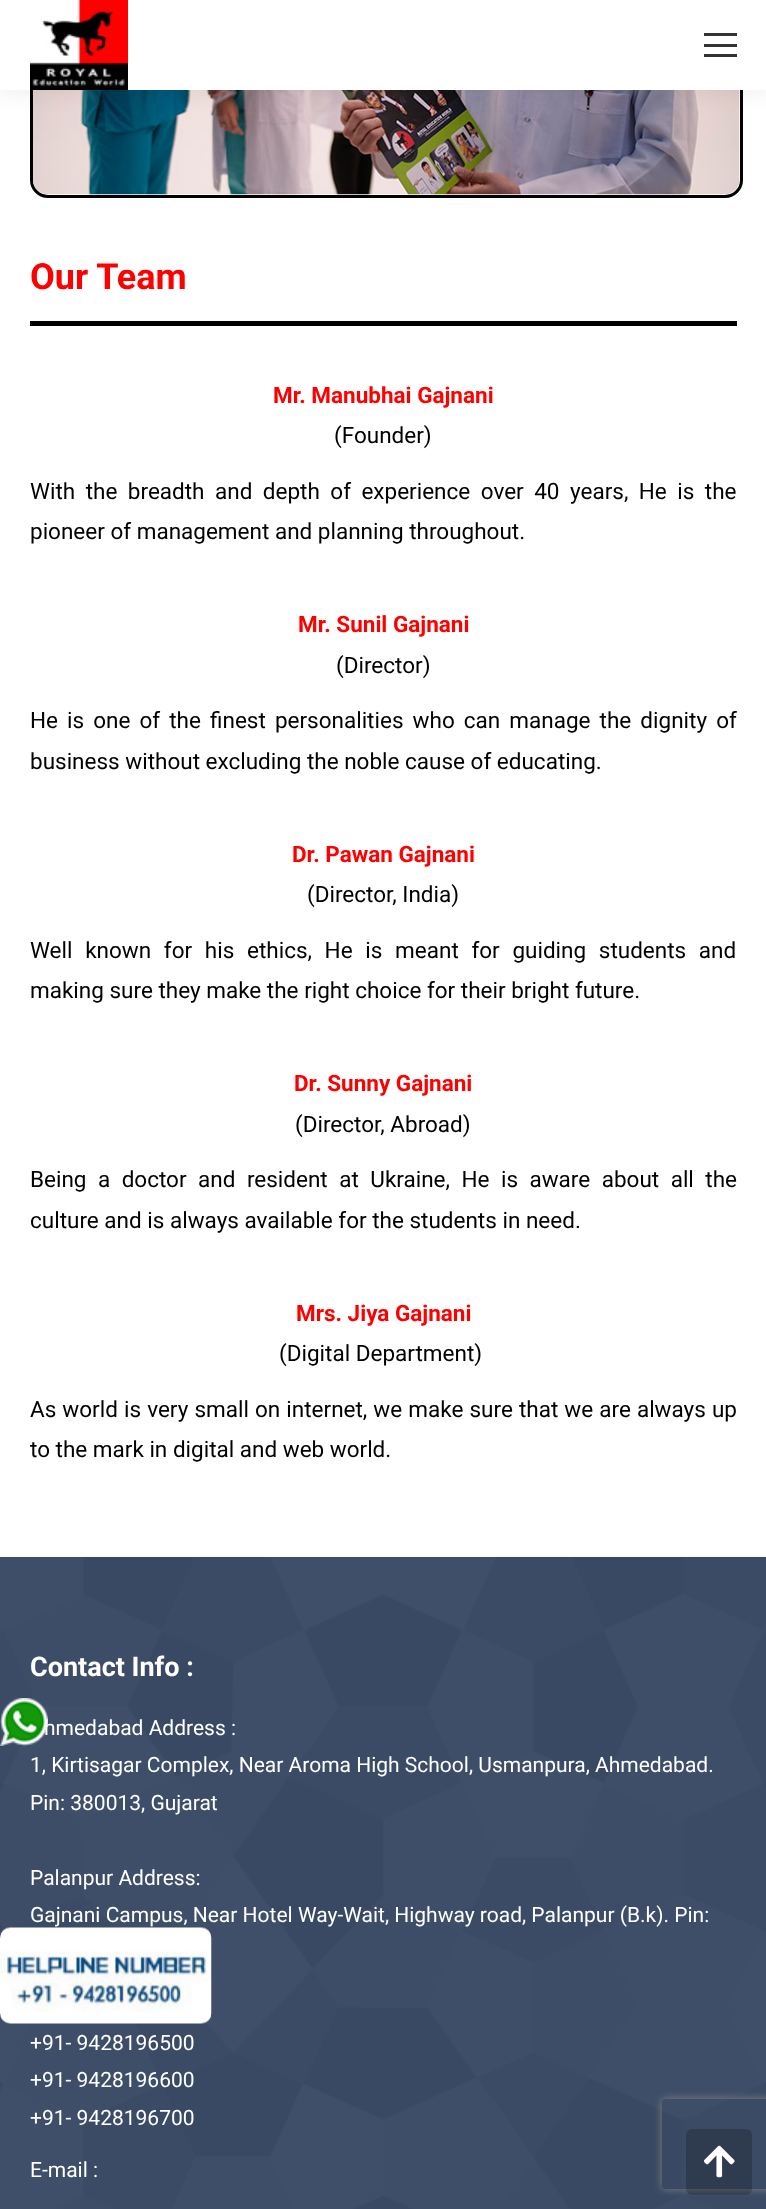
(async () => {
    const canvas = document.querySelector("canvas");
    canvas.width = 766;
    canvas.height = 2209;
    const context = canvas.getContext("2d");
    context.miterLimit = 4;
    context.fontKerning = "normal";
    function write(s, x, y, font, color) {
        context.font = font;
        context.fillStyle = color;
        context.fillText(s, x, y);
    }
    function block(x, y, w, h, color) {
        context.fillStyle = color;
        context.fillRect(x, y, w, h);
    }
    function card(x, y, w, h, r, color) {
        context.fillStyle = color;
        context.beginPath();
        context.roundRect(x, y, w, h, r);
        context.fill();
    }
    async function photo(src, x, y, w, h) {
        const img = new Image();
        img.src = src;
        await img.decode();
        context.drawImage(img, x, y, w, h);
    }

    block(0, 0, 766, 2209, "rgb(255, 255, 255)");
    block(0, 1557, 766, 652, "rgb(26, 45, 78)");
    await photo("media/4.png", 0, 1556, 766, 653);
    write("hmedabad Address :", 44, 1735, "21px Roboto", "rgb(255, 255, 255)");
    await photo("media/1.png", 0, 1698, 48, 48);
    context.beginPath();
    context.roundRect(31.5, -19.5, 710, 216, 16.5);
    context.strokeStyle = "rgb(0, 0, 0)";
    context.lineWidth = 3;
    context.stroke();
    await photo("media/3.png", 33, 90, 707, 105);
    context.fillStyle = "rgba(0, 0, 0, 0.07)";
    context.filter = "blur(11px)";
    context.beginPath();
    context.rect(-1, -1, 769, 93);
    context.fill();
    context.filter = "none";
    block(0, 0, 766, 90, "rgb(255, 255, 255)");
    await photo("media/2.png", 30, 0, 98, 90);
    block(704, 44, 33, 3, "rgb(51, 51, 51)");
    block(704, 33, 33, 3, "rgb(51, 51, 51)");
    block(704, 54, 33, 3, "rgb(51, 51, 51)");
    write("Our Team", 30, 289, "bold 36px Roboto", "rgb(254, 0, 0)");
    block(30, 321, 707, 5, "rgb(0, 0, 0)");
    write("Mr. Manubhai Gajnani", 273, 403, "bold 22.5px Roboto", "rgb(254, 0, 0)");
    write("(Founder)", 334, 443, "22.5px Roboto", "rgb(0, 0, 0)");
    context.wordSpacing = "4.9px";
    write("With the breadth and depth of experience over 40 years, He is the", 30, 499, "22.5px Roboto", "rgb(0, 0, 0)");
    context.wordSpacing = "0px";
    write("pioneer of management and planning throughout.", 30, 539, "22.5px Roboto", "rgb(0, 0, 0)");
    write("Mr. Sunil Gajnani", 298, 632, "bold 22.5px Roboto", "rgb(254, 0, 0)");
    write("(Director)", 336, 673, "22.5px Roboto", "rgb(0, 0, 0)");
    context.wordSpacing = "3.5px";
    write("He is one of the finest personalities who can manage the dignity of", 30, 728, "22.5px Roboto", "rgb(0, 0, 0)");
    context.wordSpacing = "0px";
    write("business without excluding the noble cause of educating.", 30, 769, "22.5px Roboto", "rgb(0, 0, 0)");
    write("Dr. Pawan Gajnani", 292, 862, "bold 22.5px Roboto", "rgb(254, 0, 0)");
    write("(Director, India)", 307, 902, "22.5px Roboto", "rgb(0, 0, 0)");
    context.wordSpacing = "7.1px";
    write("Well known for his ethics, He is meant for guiding students and", 30, 958, "22.5px Roboto", "rgb(0, 0, 0)");
    context.wordSpacing = "0px";
    write("making sure they make the right choice for their bright future.", 30, 998, "22.5px Roboto", "rgb(0, 0, 0)");
    write("Dr. Sunny Gajnani", 294, 1091, "bold 22.5px Roboto", "rgb(254, 0, 0)");
    write("(Director, Abroad)", 295, 1132, "22.5px Roboto", "rgb(0, 0, 0)");
    context.wordSpacing = "5.9px";
    write("Being a doctor and resident at Ukraine, He is aware about all the", 30, 1187, "22.5px Roboto", "rgb(0, 0, 0)");
    context.wordSpacing = "0px";
    write("culture and is always available for the students in need.", 30, 1228, "22.5px Roboto", "rgb(0, 0, 0)");
    write("Mrs. Jiya Gajnani", 296, 1321, "bold 22.5px Roboto", "rgb(254, 0, 0)");
    write("(Digital Department)", 279, 1361, "22.5px Roboto", "rgb(0, 0, 0)");
    context.wordSpacing = "0.5px";
    write("As world is very small on internet, we make sure that we are always up", 30, 1417, "22.5px Roboto", "rgb(0, 0, 0)");
    context.wordSpacing = "0px";
    write("to the mark in digital and web world.", 30, 1457, "22.5px Roboto", "rgb(0, 0, 0)");
    write("Contact Info :", 30, 1676, "bold 27px Roboto", "rgb(255, 255, 255)");
    write("1, Kirtisagar Complex, Near Aroma High School, Usmanpura, Ahmedabad.", 30, 1772, "21px Roboto", "rgb(255, 255, 255)");
    write("Pin: 380013, Gujarat", 30, 1810, "21px Roboto", "rgb(255, 255, 255)");
    write("Palanpur Address:", 30, 1885, "21px Roboto", "rgb(255, 255, 255)");
    write("Gajnani Campus, Near Hotel Way-Wait, Highway road, Palanpur (B.k). Pin:", 30, 1922, "21px Roboto", "rgb(255, 255, 255)");
    write("+91- 9428196500", 30, 2050, "21px Roboto", "rgb(255, 255, 255)");
    write("+91- 9428196600", 30, 2087, "21px Roboto", "rgb(255, 255, 255)");
    write("+91- 9428196700", 30, 2125, "21px Roboto", "rgb(255, 255, 255)");
    write("E-mail :", 30, 2177, "21px Roboto", "rgb(255, 255, 255)");
    context.save();
    context.beginPath();
    context.moveTo(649, 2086);
    context.lineTo(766, 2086);
    context.lineTo(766, 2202);
    context.lineTo(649, 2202);
    context.closePath();
    context.moveTo(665, 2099);
    context.lineTo(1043, 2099);
    context.bezierCurveTo(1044.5, 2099, 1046, 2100.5, 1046, 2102);
    context.lineTo(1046, 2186);
    context.bezierCurveTo(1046, 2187.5, 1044.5, 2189, 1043, 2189);
    context.lineTo(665, 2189);
    context.bezierCurveTo(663.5, 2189, 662, 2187.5, 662, 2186);
    context.lineTo(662, 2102);
    context.bezierCurveTo(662, 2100.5, 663.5, 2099, 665, 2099);
    context.closePath();
    context.clip("evenodd");
    context.fillStyle = "rgb(128, 128, 128)";
    context.filter = "blur(4px)";
    context.beginPath();
    context.roundRect(662, 2099, 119, 90, 3);
    context.fill();
    context.filter = "none";
    context.restore();
    card(686, 2129, 66, 66, 6, "rgba(0, 0, 0, 0.2)");
    await photo("media/5.png", 703, 2145, 32, 33);
    await photo("media/6.png", 0, 1927, 212, 97);
})();
